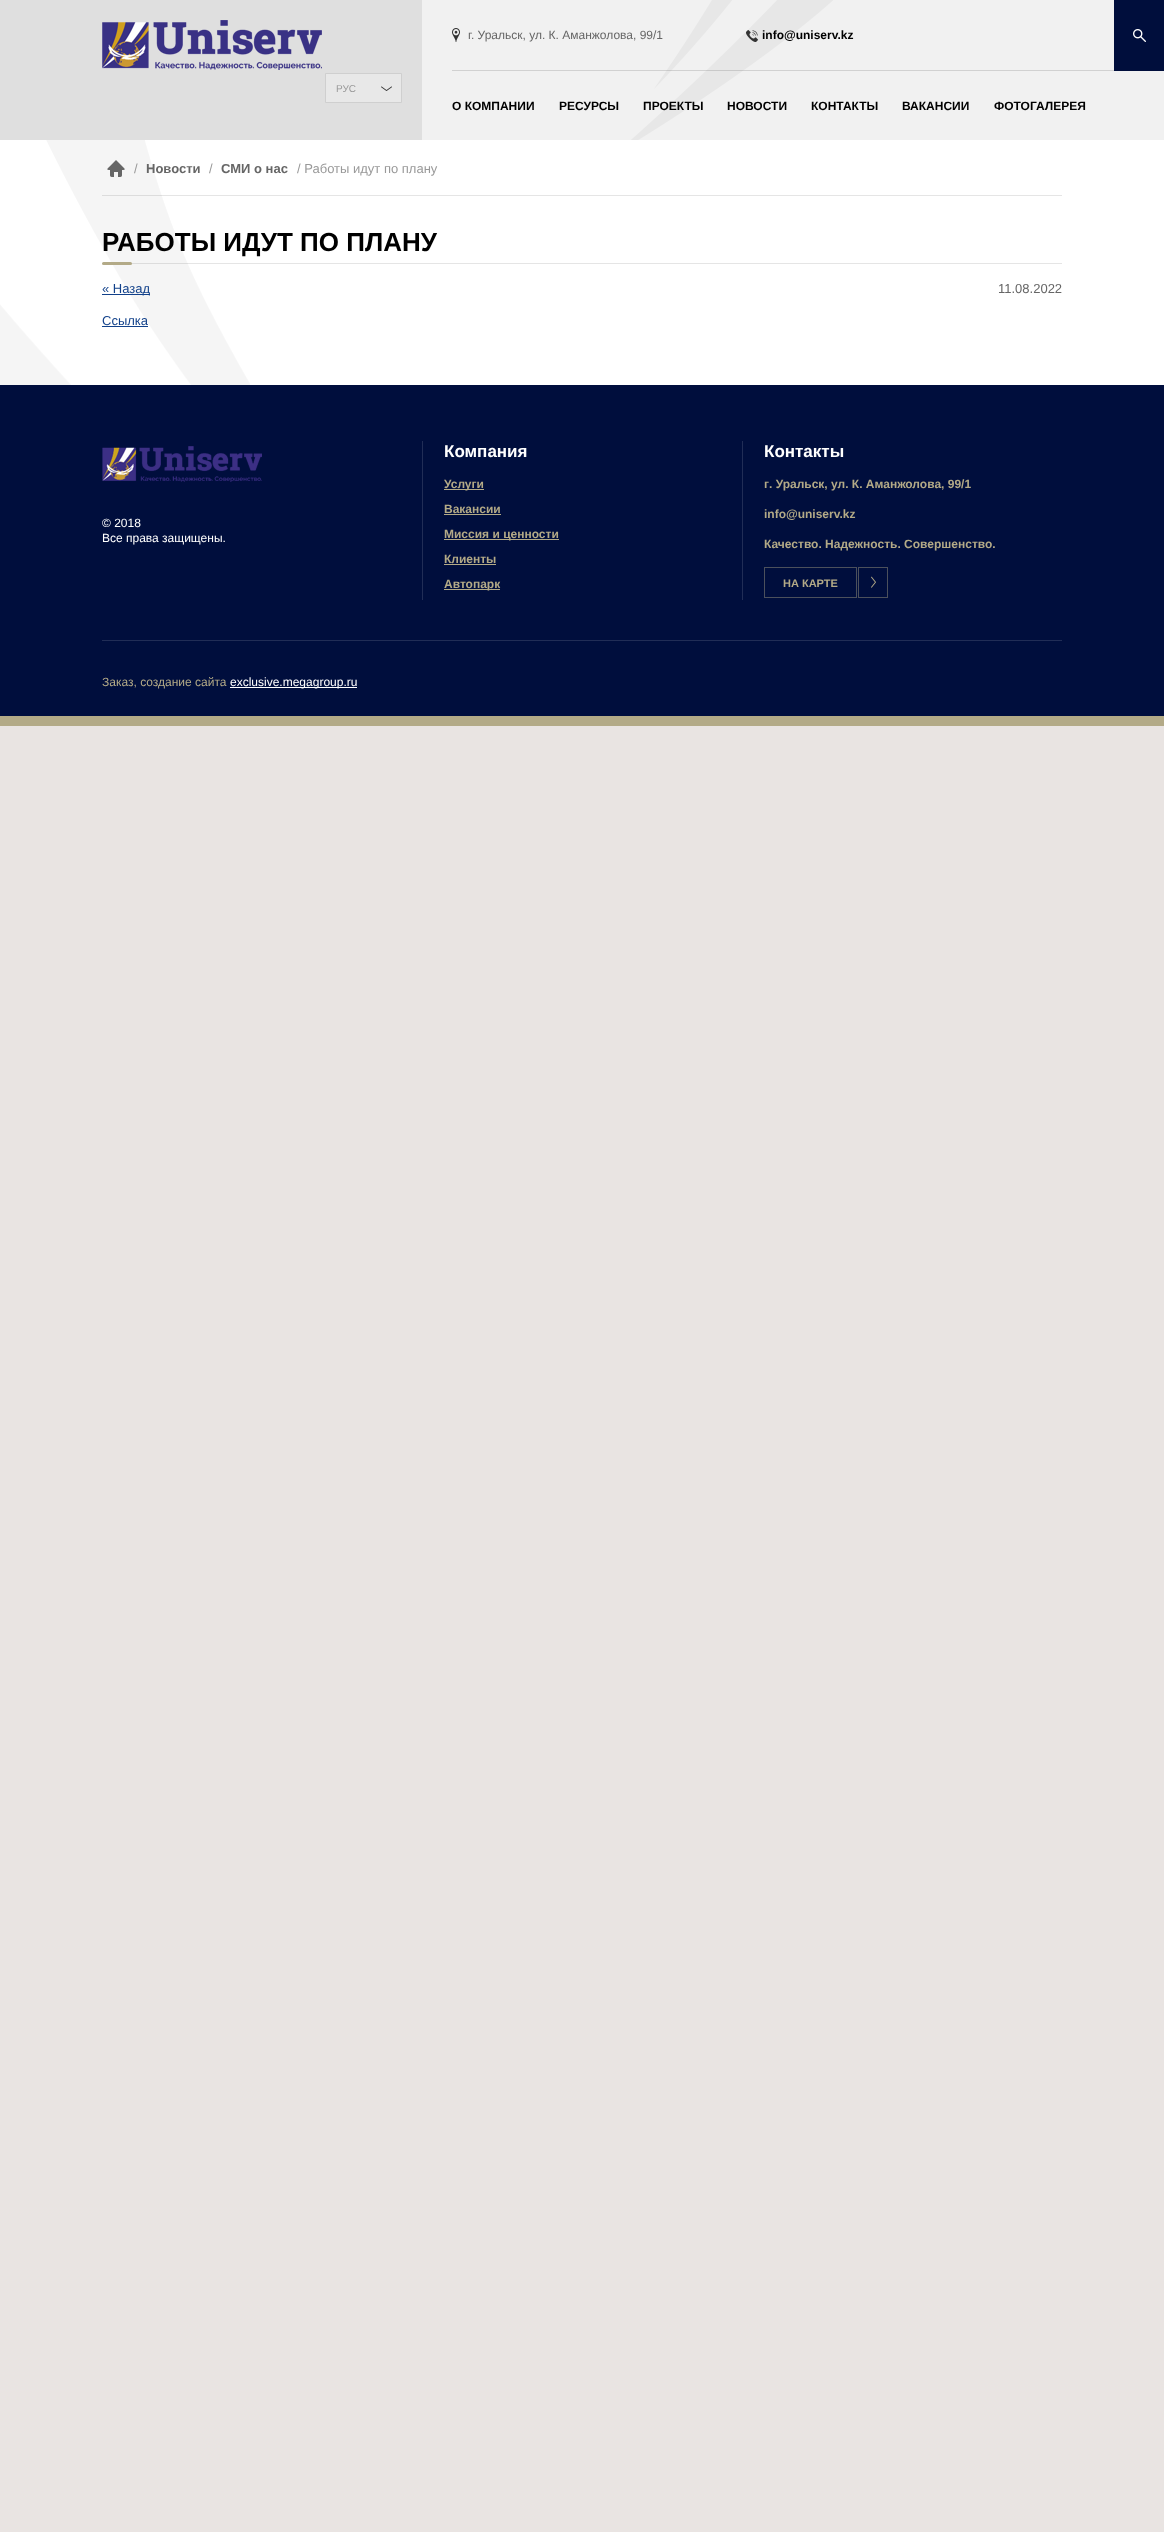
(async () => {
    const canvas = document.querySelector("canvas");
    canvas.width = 1164;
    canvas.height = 2532;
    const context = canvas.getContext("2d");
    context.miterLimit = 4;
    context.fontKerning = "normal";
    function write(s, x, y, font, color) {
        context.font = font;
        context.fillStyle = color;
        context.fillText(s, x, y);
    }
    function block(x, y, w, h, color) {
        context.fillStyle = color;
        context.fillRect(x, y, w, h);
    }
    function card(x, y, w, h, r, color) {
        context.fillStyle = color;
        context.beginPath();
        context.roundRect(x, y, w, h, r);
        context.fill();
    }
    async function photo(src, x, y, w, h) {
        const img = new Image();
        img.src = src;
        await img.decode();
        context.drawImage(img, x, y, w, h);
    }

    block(0, 0, 1164, 2532, "rgb(233, 228, 226)");
    block(0, 0, 422, 140, "rgb(223, 223, 223)");
    block(422, 0, 742, 140, "rgb(241, 241, 241)");
    await photo("media/1.png", 631, 0, 202, 140);
    await photo("media/2.png", 102, 20, 220, 50);
    context.fillStyle = "rgb(232, 232, 232)";
    context.beginPath();
    context.rect(325.5, 73.5, 76, 29);
    context.fill();
    context.strokeStyle = "rgb(207, 207, 207)";
    context.stroke();
    write("РУС", 336, 92, "10px Liberation Sans", "rgb(153, 153, 153)");
    await photo("media/3.png", 381, 86, 11, 5);
    block(452, 70, 662, 1, "rgba(0, 0, 0, 0.13)");
    await photo("media/4.png", 452, 28, 8, 14);
    write("г. Уральск, ул. К. Аманжолова, 99/1", 468, 39, "12px Liberation Sans", "rgb(102, 102, 102)");
    await photo("media/5.png", 746, 30, 12, 12);
    write("info@uniserv.kz", 762, 39, "bold 12px Liberation Sans", "rgb(0, 0, 0)");
    write("О КОМПАНИИ", 452, 110, "bold 12px Arimo", "rgb(0, 0, 0)");
    write("РЕСУРСЫ", 559, 110, "bold 12px Arimo", "rgb(0, 0, 0)");
    write("ПРОЕКТЫ", 643, 110, "bold 12px Arimo", "rgb(0, 0, 0)");
    write("НОВОСТИ", 727, 110, "bold 12px Arimo", "rgb(0, 0, 0)");
    write("КОНТАКТЫ", 811, 110, "bold 12px Arimo", "rgb(0, 0, 0)");
    write("ВАКАНСИИ", 902, 110, "bold 12px Arimo", "rgb(0, 0, 0)");
    write("ФОТОГАЛЕРЕЯ", 994, 110, "bold 12px Arimo", "rgb(0, 0, 0)");
    block(1114, 0, 50, 71, "rgb(0, 14, 60)");
    await photo("media/6.png", 1133, 29, 13, 13);
    block(0, 140, 1164, 245, "rgb(255, 255, 255)");
    await photo("media/7.png", 0, 140, 250, 245);
    block(102, 195, 960, 1, "rgba(0, 0, 0, 0.1)");
    await photo("media/8.png", 107, 160, 18, 17);
    write("/", 134, 173, "13px Liberation Sans", "rgb(153, 153, 153)");
    write("Новости", 146, 173, "bold 13px Liberation Sans", "rgb(102, 102, 102)");
    write("/", 209, 173, "13px Liberation Sans", "rgb(153, 153, 153)");
    write("СМИ о нас", 221, 173, "bold 13px Liberation Sans", "rgb(102, 102, 102)");
    write("/ Работы идут по плану", 297, 173, "13px Liberation Sans", "rgb(153, 153, 153)");
    block(102, 263, 960, 1, "rgba(0, 0, 0, 0.1)");
    write("РАБОТЫ ИДУТ ПО ПЛАНУ", 102, 251, "bold 26px Arimo", "rgb(0, 0, 0)");
    card(102, 262, 30, 3, 1.5, "rgb(179, 170, 135)");
    block(102, 294, 48, 1, "rgb(18, 65, 138)");
    write("« Назад", 102, 293, "13px Liberation Sans", "rgb(18, 65, 138)");
    write("11.08.2022", 998, 293, "13px Liberation Sans", "rgb(102, 102, 102)");
    write("Ссылка", 102, 325, "13px Liberation Sans", "rgb(18, 65, 138)");
    block(102, 326, 46, 1, "rgb(18, 65, 138)");
    block(0, 385, 1164, 331, "rgb(0, 14, 61)");
    await photo("media/9.png", 102, 446, 160, 36);
    write("© 2018", 102, 527, "12px Arimo", "rgb(255, 255, 255)");
    write("Все права защищены.", 102, 542, "12px Arimo", "rgb(255, 255, 255)");
    block(422, 441, 1, 159, "rgb(33, 45, 86)");
    write("Компания", 444, 457, "bold 17px Arimo", "rgb(255, 255, 255)");
    block(444, 489, 40, 1, "rgb(179, 170, 135)");
    write("Услуги", 444, 488, "bold 12px Arimo", "rgb(179, 170, 135)");
    write("Вакансии", 444, 513, "bold 12px Arimo", "rgb(179, 170, 135)");
    block(444, 514, 57, 1, "rgb(179, 170, 135)");
    block(444, 539, 115, 1, "rgb(179, 170, 135)");
    write("Миссия и ценности", 444, 538, "bold 12px Arimo", "rgb(179, 170, 135)");
    write("Клиенты", 444, 563, "bold 12px Arimo", "rgb(179, 170, 135)");
    block(444, 564, 52, 1, "rgb(179, 170, 135)");
    block(444, 589, 56, 1, "rgb(179, 170, 135)");
    write("Автопарк", 444, 588, "bold 12px Arimo", "rgb(179, 170, 135)");
    block(742, 441, 1, 159, "rgb(33, 45, 86)");
    write("Контакты", 764, 457, "bold 17px Arimo", "rgb(255, 255, 255)");
    write("г. Уральск, ул. К. Аманжолова, 99/1", 764, 488, "bold 12px Arimo", "rgb(179, 170, 135)");
    write("info@uniserv.kz", 764, 518, "bold 12px Arimo", "rgb(179, 170, 135)");
    write("Качество. Надежность. Совершенство.", 764, 548, "bold 12px Arimo", "rgb(179, 170, 135)");
    context.strokeStyle = "rgb(75, 80, 92)";
    context.strokeRect(764.5, 567.5, 92, 30);
    write("НА КАРТЕ", 783, 587, "bold 11px Liberation Sans", "rgb(179, 170, 135)");
    context.strokeRect(858.5, 567.5, 29, 30);
    await photo("media/10.png", 871, 576, 5, 12);
    block(102, 640, 960, 1, "rgb(33, 45, 86)");
    write("Заказ, создание сайта", 102, 686, "12px Arimo", "rgb(179, 170, 135)");
    block(230, 687, 127, 1, "rgb(255, 255, 255)");
    write("exclusive.megagroup.ru", 230, 686, "12px Arimo", "rgb(255, 255, 255)");
    block(0, 716, 1164, 10, "rgb(179, 170, 135)");
})();
